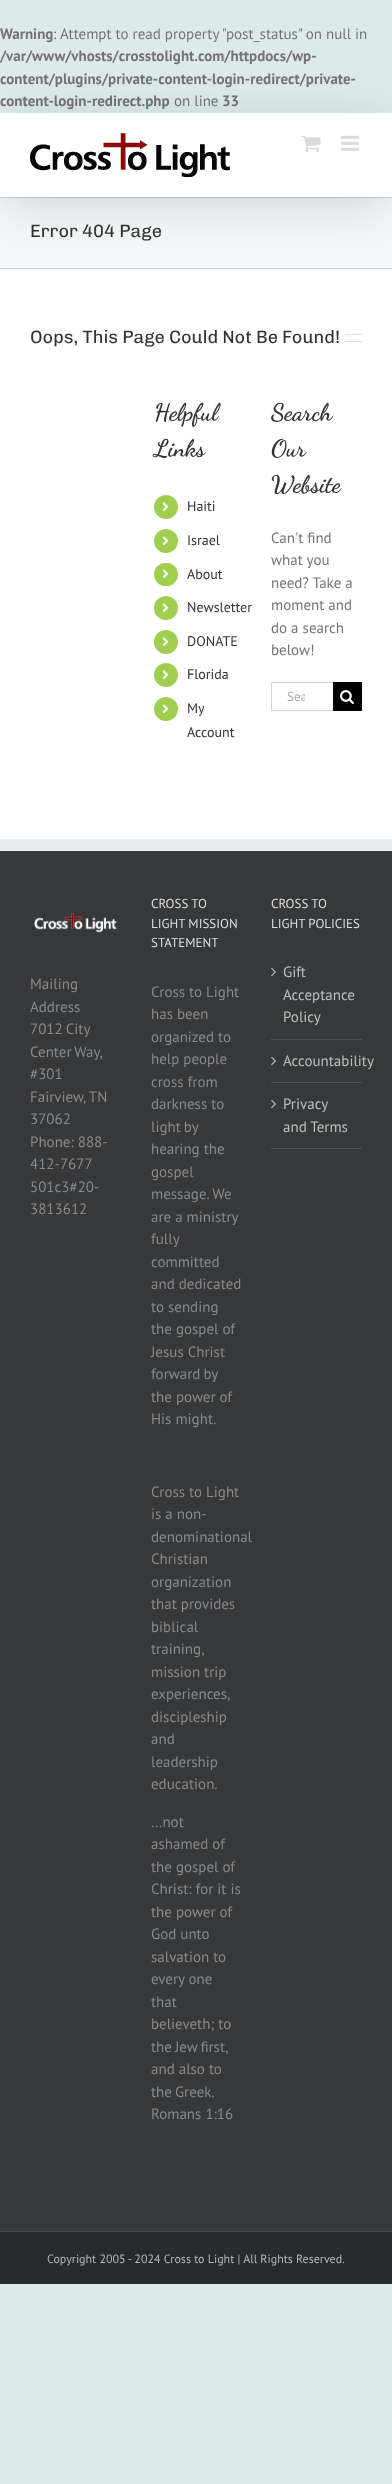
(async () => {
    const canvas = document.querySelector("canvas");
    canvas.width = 392;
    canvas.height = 2484;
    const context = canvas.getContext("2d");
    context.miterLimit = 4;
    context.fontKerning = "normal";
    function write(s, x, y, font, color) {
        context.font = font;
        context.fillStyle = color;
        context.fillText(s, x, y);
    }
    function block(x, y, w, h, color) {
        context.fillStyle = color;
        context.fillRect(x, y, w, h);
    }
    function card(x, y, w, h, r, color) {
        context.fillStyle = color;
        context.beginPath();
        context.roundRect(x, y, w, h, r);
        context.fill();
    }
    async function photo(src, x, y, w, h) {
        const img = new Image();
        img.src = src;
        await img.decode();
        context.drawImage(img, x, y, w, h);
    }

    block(0, 0, 392, 2484, "rgb(220, 235, 233)");
    write("Warning", 0, 39, "bold 15px PT Sans", "rgb(116, 116, 116)");
    write(":", 53, 39, "15px PT Sans", "rgb(116, 116, 116)");
    write("Attempt to read property \"post_status\" on null in", 60, 39, "15px PT Sans", "rgb(116, 116, 116)");
    write("/var/www/vhosts/crosstolight.com/httpdocs/wp-", 0, 61, "bold 15px PT Sans", "rgb(116, 116, 116)");
    write("content/plugins/private-content-login-redirect/private-", 0, 84, "bold 15px PT Sans", "rgb(116, 116, 116)");
    write("content-login-redirect.php", 0, 106, "bold 15px PT Sans", "rgb(116, 116, 116)");
    write("on line", 174, 106, "15px PT Sans", "rgb(116, 116, 116)");
    write("33", 222, 106, "bold 15px PT Sans", "rgb(116, 116, 116)");
    block(0, 198, 392, 70, "rgb(243, 248, 248)");
    block(0, 197, 392, 1, "rgb(210, 211, 212)");
    block(0, 268, 392, 1, "rgb(210, 211, 212)");
    block(0, 269, 392, 570, "rgb(255, 255, 255)");
    context.fillStyle = "rgba(0, 0, 0, 0.14)";
    context.filter = "blur(25px)";
    context.beginPath();
    context.rect(2, 125, 388, 80);
    context.fill();
    context.filter = "none";
    block(0, 113, 392, 84, "rgb(255, 255, 255)");
    await photo("media/1.png", 30, 133, 200, 44);
    await photo("media/2.png", 301, 135, 20, 18);
    await photo("media/3.png", 341, 135, 18, 16);
    write("Error 404 Page", 30, 237, "500 18px Chivo", "rgb(51, 51, 51)");
    write("Oops, This Page Could Not Be Found!", 30, 343, "500 18px Chivo", "rgb(51, 51, 51)");
    block(345, 334, 17, 1, "rgb(224, 222, 222)");
    block(345, 341, 17, 1, "rgb(224, 222, 222)");
    write("Helpful", 154, 420, "bold 24px Dancing Script", "rgb(51, 51, 51)");
    write("Links", 154, 456, "bold 24px Dancing Script", "rgb(51, 51, 51)");
    context.fillStyle = "rgb(160, 206, 78)";
    context.beginPath();
    context.arc(166, 507, 12, 0, Math.PI * 2);
    context.fill();
    await photo("media/4.png", 162, 502, 7, 10);
    write("Haiti", 187, 511, "14px PT Sans", "rgb(51, 51, 51)");
    context.fillStyle = "rgb(160, 206, 78)";
    context.beginPath();
    context.arc(166, 541, 12, 0, Math.PI * 2);
    context.fill();
    await photo("media/4.png", 162, 536, 7, 10);
    write("Israel", 187, 545, "14px PT Sans", "rgb(51, 51, 51)");
    card(154, 563, 24, 23, 11.5, "rgb(160, 206, 78)");
    await photo("media/4.png", 162, 569, 7, 10);
    write("About", 187, 579, "14px PT Sans", "rgb(51, 51, 51)");
    context.fillStyle = "rgb(160, 206, 78)";
    context.beginPath();
    context.arc(166, 608, 12, 0, Math.PI * 2);
    context.fill();
    await photo("media/4.png", 162, 603, 7, 10);
    write("Newsletter", 187, 612, "14px PT Sans", "rgb(51, 51, 51)");
    context.fillStyle = "rgb(160, 206, 78)";
    context.beginPath();
    context.arc(166, 642, 12, 0, Math.PI * 2);
    context.fill();
    await photo("media/4.png", 162, 637, 7, 10);
    write("DONATE", 187, 646, "14px PT Sans", "rgb(51, 51, 51)");
    context.fillStyle = "rgb(160, 206, 78)";
    context.beginPath();
    context.arc(166, 675, 12, 0, Math.PI * 2);
    context.fill();
    await photo("media/4.png", 162, 670, 7, 10);
    write("Florida", 187, 679, "14px PT Sans", "rgb(51, 51, 51)");
    context.fillStyle = "rgb(160, 206, 78)";
    context.beginPath();
    context.arc(166, 709, 12, 0, Math.PI * 2);
    context.fill();
    await photo("media/4.png", 162, 704, 7, 10);
    write("My", 187, 713, "14px PT Sans", "rgb(51, 51, 51)");
    write("Account", 187, 737, "14px PT Sans", "rgb(51, 51, 51)");
    write("Search", 271, 420, "bold 24px Dancing Script", "rgb(51, 51, 51)");
    write("Our", 271, 456, "bold 24px Dancing Script", "rgb(51, 51, 51)");
    write("Website", 271, 492, "bold 24px Dancing Script", "rgb(51, 51, 51)");
    write("Can't find", 271, 543, "15px PT Sans", "rgb(116, 116, 116)");
    write("what you", 271, 565, "15px PT Sans", "rgb(116, 116, 116)");
    write("need? Take a", 271, 588, "15px PT Sans", "rgb(116, 116, 116)");
    write("moment and", 271, 610, "15px PT Sans", "rgb(116, 116, 116)");
    write("do a search", 271, 633, "15px PT Sans", "rgb(116, 116, 116)");
    write("below!", 271, 655, "15px PT Sans", "rgb(116, 116, 116)");
    block(271, 682, 62, 1, "rgb(210, 210, 210)");
    block(271, 710, 62, 1, "rgb(210, 210, 210)");
    block(271, 682, 1, 29, "rgb(210, 210, 210)");
    context.save();
    context.beginPath();
    context.rect(287, 688, 18, 17);
    context.clip();
    write("Sea", 287, 701, "13px PT Sans", "rgb(170, 169, 169)");
    context.restore();
    block(333, 682, 29, 29, "rgb(0, 0, 0)");
    await photo("media/5.png", 340, 690, 14, 14);
    block(0, 851, 392, 1380, "rgb(54, 56, 57)");
    block(0, 839, 392, 12, "rgb(233, 234, 238)");
    await photo("media/6.png", 34, 912, 83, 21);
    write("Mailing", 30, 989, "15px PT Sans", "rgb(140, 137, 137)");
    write("Address", 30, 1012, "15px PT Sans", "rgb(140, 137, 137)");
    context.wordSpacing = "-1px";
    write("7012 City", 30, 1034, "15px PT Sans", "rgb(140, 137, 137)");
    write("Center Way,", 30, 1057, "15px PT Sans", "rgb(140, 137, 137)");
    context.wordSpacing = "0px";
    write("#301", 30, 1079, "15px PT Sans", "rgb(140, 137, 137)");
    write("Fairview, TN", 30, 1102, "15px PT Sans", "rgb(140, 137, 137)");
    write("37062", 30, 1124, "15px PT Sans", "rgb(140, 137, 137)");
    write("Phone: 888-", 30, 1147, "15px PT Sans", "rgb(140, 137, 137)");
    write("412-7677", 30, 1169, "15px PT Sans", "rgb(140, 137, 137)");
    write("501c3#20-", 30, 1192, "15px PT Sans", "rgb(140, 137, 137)");
    write("3813612", 30, 1214, "15px PT Sans", "rgb(140, 137, 137)");
    write("CROSS TO", 151, 908, "13px PT Sans", "rgb(221, 221, 221)");
    write("LIGHT MISSION", 151, 928, "13px PT Sans", "rgb(221, 221, 221)");
    write("STATEMENT", 151, 947, "13px PT Sans", "rgb(221, 221, 221)");
    write("Cross to Light", 151, 997, "15px PT Sans", "rgb(140, 137, 137)");
    write("has been", 151, 1019, "15px PT Sans", "rgb(140, 137, 137)");
    write("organized to", 151, 1042, "15px PT Sans", "rgb(140, 137, 137)");
    write("help people", 151, 1064, "15px PT Sans", "rgb(140, 137, 137)");
    write("cross from", 151, 1087, "15px PT Sans", "rgb(140, 137, 137)");
    write("darkness to", 151, 1109, "15px PT Sans", "rgb(140, 137, 137)");
    context.wordSpacing = "-1px";
    write("light by", 151, 1132, "15px PT Sans", "rgb(140, 137, 137)");
    context.wordSpacing = "0px";
    write("hearing the", 151, 1154, "15px PT Sans", "rgb(140, 137, 137)");
    write("gospel", 151, 1177, "15px PT Sans", "rgb(140, 137, 137)");
    write("message. We", 151, 1199, "15px PT Sans", "rgb(140, 137, 137)");
    write("are a ministry", 151, 1222, "15px PT Sans", "rgb(140, 137, 137)");
    write("fully", 151, 1244, "15px PT Sans", "rgb(140, 137, 137)");
    write("committed", 151, 1267, "15px PT Sans", "rgb(140, 137, 137)");
    write("and dedicated", 151, 1289, "15px PT Sans", "rgb(140, 137, 137)");
    write("to sending", 151, 1312, "15px PT Sans", "rgb(140, 137, 137)");
    write("the gospel of", 151, 1334, "15px PT Sans", "rgb(140, 137, 137)");
    write("Jesus Christ", 151, 1357, "15px PT Sans", "rgb(140, 137, 137)");
    context.wordSpacing = "-1px";
    write("forward by", 151, 1379, "15px PT Sans", "rgb(140, 137, 137)");
    context.wordSpacing = "0px";
    write("the power of", 151, 1402, "15px PT Sans", "rgb(140, 137, 137)");
    write("His might.", 151, 1424, "15px PT Sans", "rgb(140, 137, 137)");
    write("Cross to Light", 151, 1497, "15px PT Sans", "rgb(140, 137, 137)");
    write("is a non-", 151, 1519, "15px PT Sans", "rgb(140, 137, 137)");
    write("denominational", 151, 1542, "15px PT Sans", "rgb(140, 137, 137)");
    write("Christian", 151, 1564, "15px PT Sans", "rgb(140, 137, 137)");
    write("organization", 151, 1587, "15px PT Sans", "rgb(140, 137, 137)");
    write("that provides", 151, 1609, "15px PT Sans", "rgb(140, 137, 137)");
    write("biblical", 151, 1632, "15px PT Sans", "rgb(140, 137, 137)");
    write("training,", 151, 1654, "15px PT Sans", "rgb(140, 137, 137)");
    write("mission trip", 151, 1677, "15px PT Sans", "rgb(140, 137, 137)");
    write("experiences,", 151, 1699, "15px PT Sans", "rgb(140, 137, 137)");
    write("discipleship", 151, 1722, "15px PT Sans", "rgb(140, 137, 137)");
    write("and", 151, 1744, "15px PT Sans", "rgb(140, 137, 137)");
    write("leadership", 151, 1767, "15px PT Sans", "rgb(140, 137, 137)");
    write("education.", 151, 1789, "15px PT Sans", "rgb(140, 137, 137)");
    write("…not", 151, 1827, "15px PT Sans", "rgb(140, 137, 137)");
    write("ashamed of", 151, 1849, "15px PT Sans", "rgb(140, 137, 137)");
    write("the gospel of", 151, 1872, "15px PT Sans", "rgb(140, 137, 137)");
    write("Christ: for it is", 151, 1894, "15px PT Sans", "rgb(140, 137, 137)");
    write("the power of", 151, 1917, "15px PT Sans", "rgb(140, 137, 137)");
    write("God unto", 151, 1939, "15px PT Sans", "rgb(140, 137, 137)");
    write("salvation to", 151, 1962, "15px PT Sans", "rgb(140, 137, 137)");
    write("every one", 151, 1984, "15px PT Sans", "rgb(140, 137, 137)");
    write("that", 151, 2007, "15px PT Sans", "rgb(140, 137, 137)");
    write("believeth; to", 151, 2029, "15px PT Sans", "rgb(140, 137, 137)");
    context.wordSpacing = "-1px";
    write("the Jew first,", 151, 2052, "15px PT Sans", "rgb(140, 137, 137)");
    context.wordSpacing = "0px";
    write("and also to", 151, 2074, "15px PT Sans", "rgb(140, 137, 137)");
    context.wordSpacing = "-1px";
    write("the Greek.", 151, 2097, "15px PT Sans", "rgb(140, 137, 137)");
    context.wordSpacing = "0px";
    write("Romans 1:16", 151, 2119, "15px PT Sans", "rgb(140, 137, 137)");
    write("CROSS TO", 271, 908, "13px PT Sans", "rgb(221, 221, 221)");
    write("LIGHT POLICIES", 271, 928, "13px PT Sans", "rgb(221, 221, 221)");
    block(271, 1039, 91, 1, "rgb(80, 81, 82)");
    await photo("media/7.png", 271, 967, 5, 10);
    write("Gift", 283, 977, "15px PT Sans", "rgb(191, 191, 191)");
    write("Acceptance", 283, 1000, "15px PT Sans", "rgb(191, 191, 191)");
    write("Policy", 283, 1022, "15px PT Sans", "rgb(191, 191, 191)");
    block(271, 1082, 91, 1, "rgb(80, 81, 82)");
    await photo("media/7.png", 271, 1056, 5, 10);
    write("Accountability", 283, 1066, "15px PT Sans", "rgb(191, 191, 191)");
    block(271, 1148, 91, 1, "rgb(80, 81, 82)");
    await photo("media/7.png", 271, 1099, 5, 10);
    write("Privacy", 283, 1109, "15px PT Sans", "rgb(191, 191, 191)");
    write("and Terms", 283, 1132, "15px PT Sans", "rgb(191, 191, 191)");
    block(0, 2232, 392, 52, "rgb(40, 42, 43)");
    block(0, 2231, 392, 1, "rgb(75, 76, 77)");
    write("Copyright 2005 - 2024 Cross to Light | All Rights Reserved.", 47, 2263, "12px PT Sans", "rgb(178, 183, 184)");
})();
